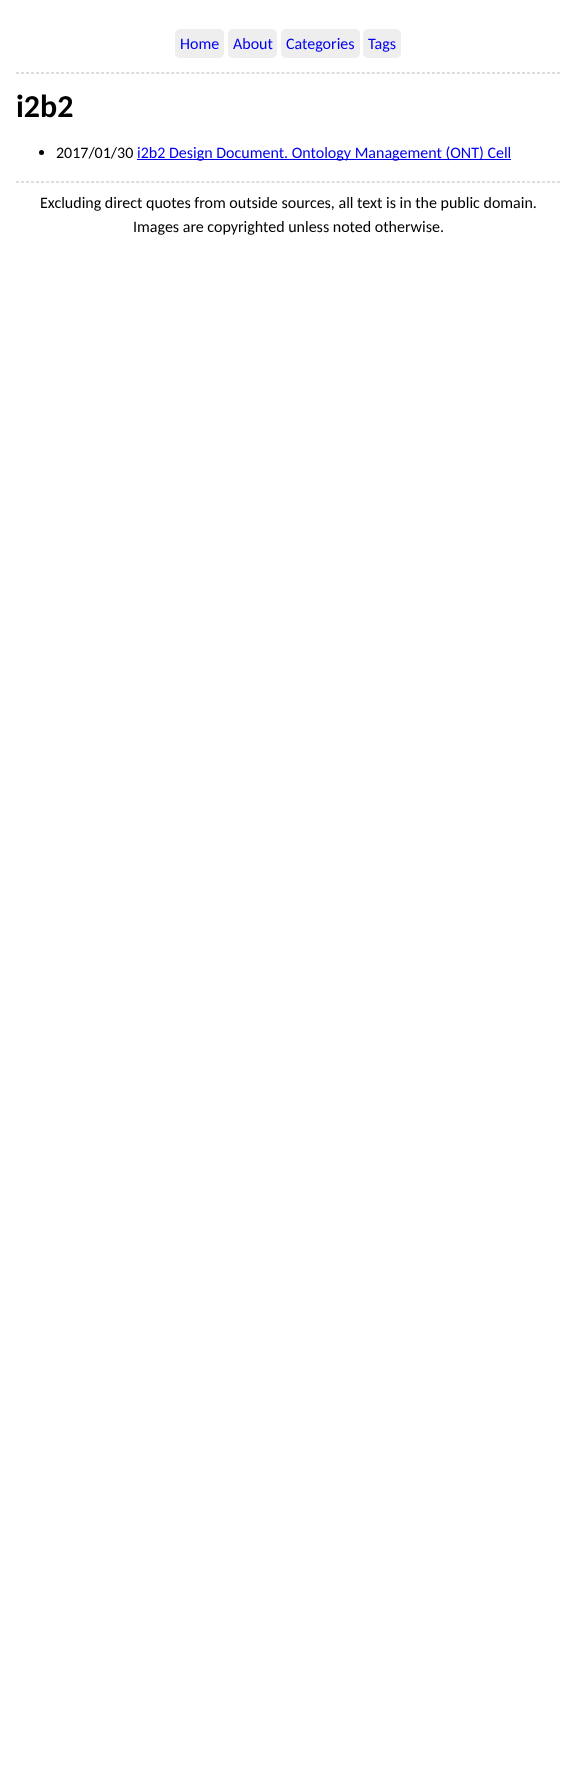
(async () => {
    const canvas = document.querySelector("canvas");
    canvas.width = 576;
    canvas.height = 1778;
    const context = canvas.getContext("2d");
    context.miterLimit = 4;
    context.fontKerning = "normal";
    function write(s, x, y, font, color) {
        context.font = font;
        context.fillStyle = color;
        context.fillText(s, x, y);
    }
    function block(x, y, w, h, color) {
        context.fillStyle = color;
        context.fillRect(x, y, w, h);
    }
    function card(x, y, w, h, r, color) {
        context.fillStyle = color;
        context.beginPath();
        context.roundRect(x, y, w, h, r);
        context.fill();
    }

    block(0, 0, 576, 1778, "rgb(255, 255, 255)");
    card(175, 29, 49, 29, 5, "rgb(238, 238, 238)");
    write("Home", 180, 49, "16px Carlito", "rgb(0, 0, 238)");
    card(228, 29, 49, 29, 5, "rgb(238, 238, 238)");
    write("About", 233, 49, "16px Carlito", "rgb(0, 0, 238)");
    card(281, 29, 79, 29, 5, "rgb(238, 238, 238)");
    write("Categories", 286, 49, "16px Carlito", "rgb(0, 0, 238)");
    card(363, 29, 38, 29, 5, "rgb(238, 238, 238)");
    write("Tags", 368, 49, "16px Carlito", "rgb(0, 0, 238)");
    context.beginPath();
    context.moveTo(16, 72.5);
    context.lineTo(560, 72.5);
    context.strokeStyle = "rgb(221, 221, 221)";
    context.setLineDash([3, 2.01]);
    context.stroke();
    block(559, 72, 1, 2, "rgb(221, 221, 221)");
    context.beginPath();
    context.moveTo(16, 73.5);
    context.lineTo(560, 73.5);
    context.stroke();
    write("i2b2", 16, 117, "bold 32px Carlito", "rgb(0, 0, 0)");
    context.beginPath();
    context.arc(41.5, 152.5, 2.5, 0, Math.PI * 2);
    context.fill();
    write("2017/01/30", 56, 158, "16px Carlito", "rgb(0, 0, 0)");
    block(137, 159, 374, 1, "rgb(0, 0, 238)");
    write("i2b2 Design Document. Ontology Management (ONT) Cell", 137, 158, "16px Carlito", "rgb(0, 0, 238)");
    context.beginPath();
    context.moveTo(16, 181.5);
    context.lineTo(560, 181.5);
    context.stroke();
    block(559, 181, 1, 2, "rgb(221, 221, 221)");
    context.beginPath();
    context.moveTo(16, 182.5);
    context.lineTo(560, 182.5);
    context.stroke();
    write("Excluding direct quotes from outside sources, all text is in the public domain.", 40, 208, "16px Carlito", "rgb(0, 0, 0)");
    write("Images are copyrighted unless noted otherwise.", 133, 232, "16px Carlito", "rgb(0, 0, 0)");
})();
